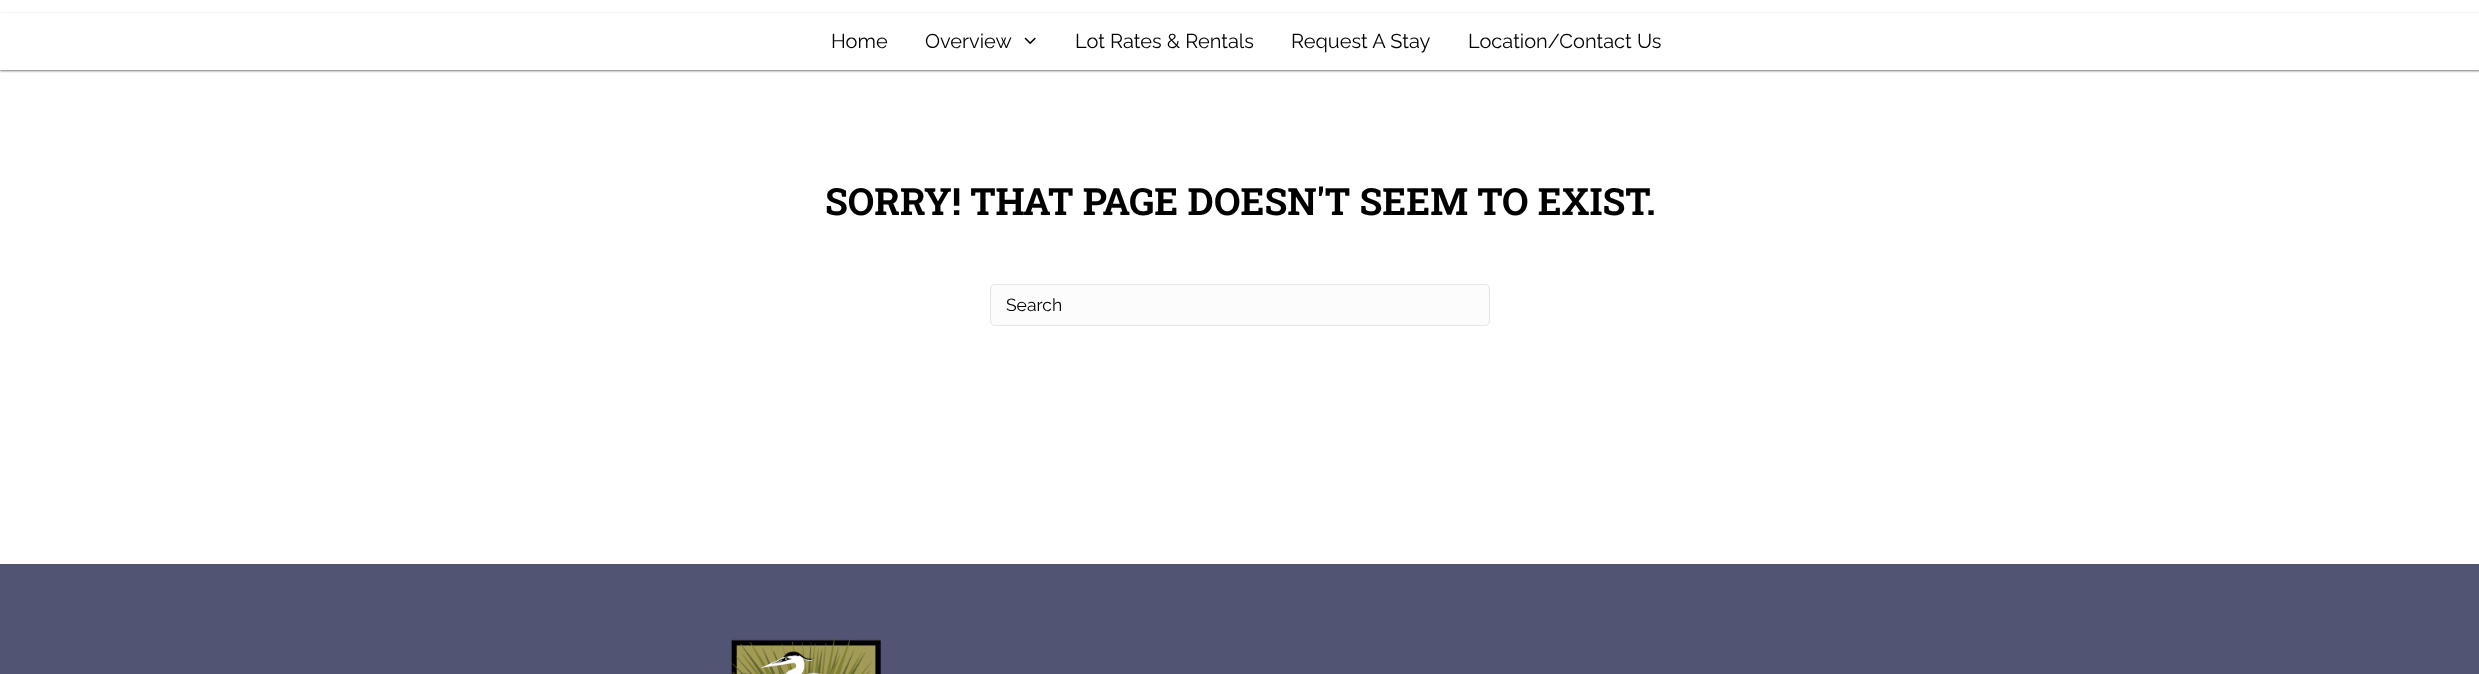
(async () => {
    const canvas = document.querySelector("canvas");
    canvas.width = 2479;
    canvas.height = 674;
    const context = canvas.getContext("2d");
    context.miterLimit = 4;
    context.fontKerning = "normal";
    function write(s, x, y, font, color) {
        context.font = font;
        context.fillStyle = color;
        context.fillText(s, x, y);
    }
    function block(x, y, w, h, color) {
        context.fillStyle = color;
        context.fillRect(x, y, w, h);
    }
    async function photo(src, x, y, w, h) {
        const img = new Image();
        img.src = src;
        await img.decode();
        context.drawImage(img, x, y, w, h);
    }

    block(0, 0, 2479, 674, "rgb(255, 255, 255)");
    context.save();
    context.beginPath();
    context.moveTo(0, 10);
    context.lineTo(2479, 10);
    context.lineTo(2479, 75);
    context.lineTo(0, 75);
    context.closePath();
    context.moveTo(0, 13);
    context.lineTo(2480, 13);
    context.lineTo(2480, 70);
    context.lineTo(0, 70);
    context.closePath();
    context.clip("evenodd");
    context.fillStyle = "rgb(119, 119, 119)";
    context.filter = "blur(1px)";
    context.beginPath();
    context.rect(0, 14, 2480, 57);
    context.fill();
    context.filter = "none";
    context.restore();
    write("Home", 831, 48, "20px Raleway", "rgb(0, 0, 0)");
    write("Overview", 925, 48, "20px Raleway", "rgb(0, 0, 0)");
    await photo("media/1.png", 1024, 37, 12, 8);
    write("Lot Rates & Rentals", 1075, 48, "20px Raleway", "rgb(0, 0, 0)");
    write("Request A Stay", 1291, 48, "20px Raleway", "rgb(0, 0, 0)");
    write("Location/Contact Us", 1468, 48, "20px Raleway", "rgb(0, 0, 0)");
    write("SORRY! THAT PAGE DOESN'T SEEM TO EXIST.", 825, 215, "bold 37.5px Roboto Slab", "rgb(0, 0, 0)");
    context.fillStyle = "rgb(252, 252, 252)";
    context.beginPath();
    context.roundRect(990.5, 284.5, 499, 41, 4.5);
    context.fill();
    context.strokeStyle = "rgb(230, 230, 230)";
    context.stroke();
    write("Search", 1006, 311, "17.5px Raleway", "rgb(0, 0, 0)");
    block(0, 564, 2479, 110, "rgb(81, 84, 114)");
    await photo("media/2.png", 731, 636, 150, 38);
})();
